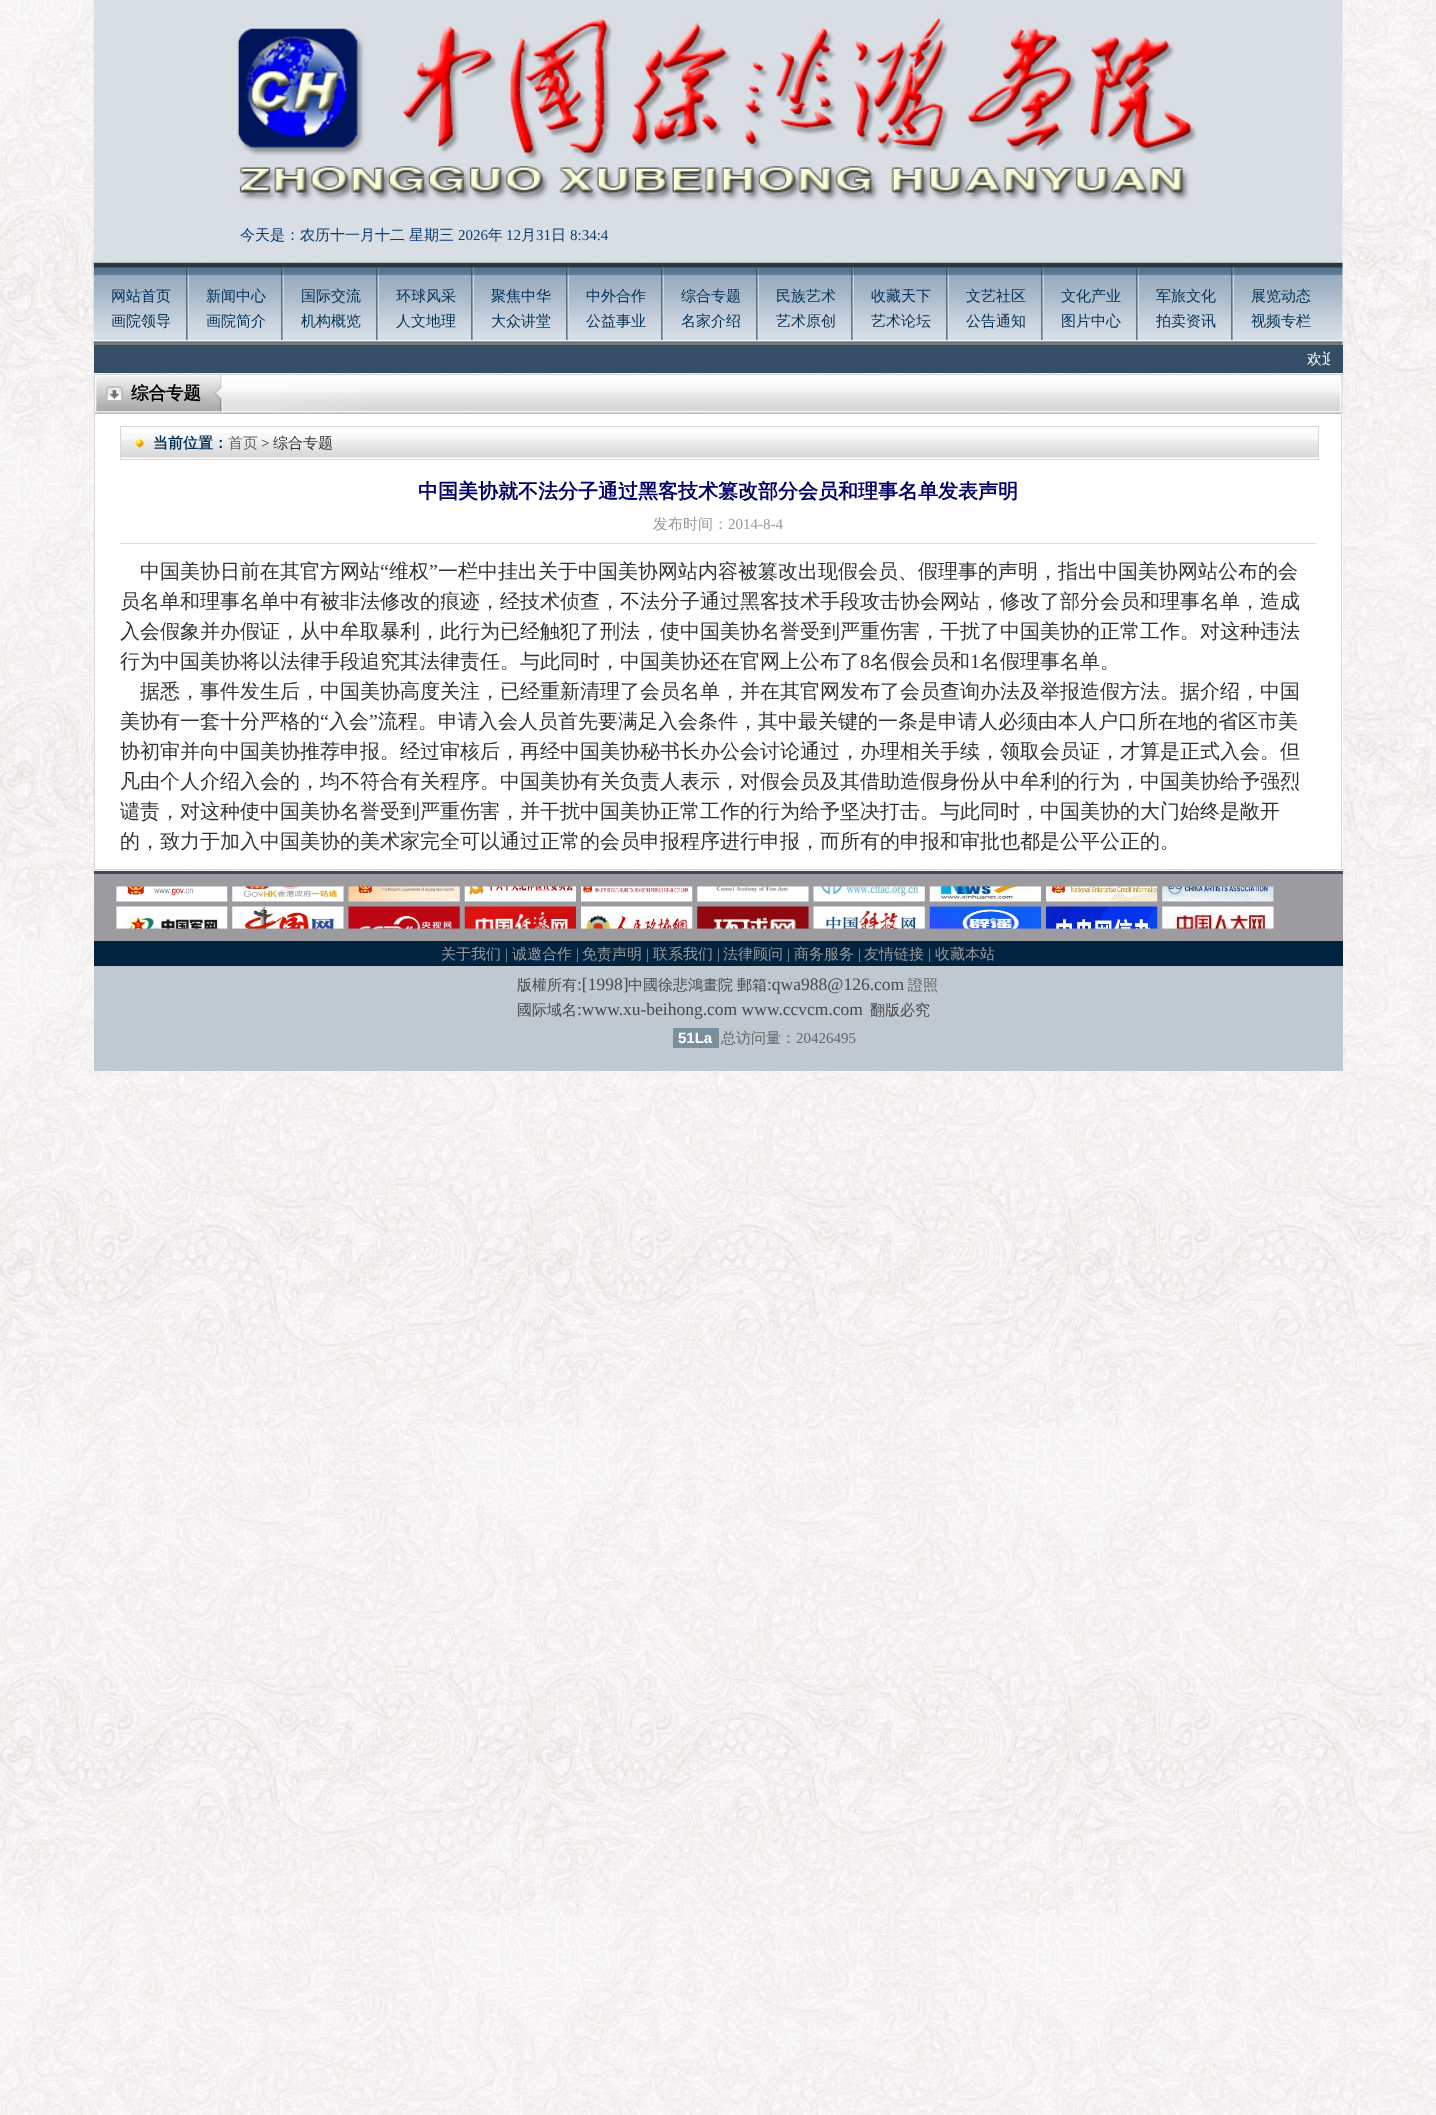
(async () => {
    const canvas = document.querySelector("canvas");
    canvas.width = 1436;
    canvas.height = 2115;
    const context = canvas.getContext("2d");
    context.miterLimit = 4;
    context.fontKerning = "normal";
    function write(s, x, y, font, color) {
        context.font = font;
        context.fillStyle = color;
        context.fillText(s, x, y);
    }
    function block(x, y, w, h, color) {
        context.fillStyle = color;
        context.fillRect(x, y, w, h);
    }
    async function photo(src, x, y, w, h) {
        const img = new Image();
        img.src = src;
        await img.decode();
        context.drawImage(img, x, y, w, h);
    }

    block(0, 0, 1436, 2115, "rgb(255, 255, 255)");
    await photo("media/1.png", 0, 0, 1436, 2115);
    await photo("media/3.png", 93, 262, 1250, 83);
    await photo("media/2.png", 93, 0, 1250, 263);
    write("今天是：农历十一月十二", 240, 240, "500 15px WenQuanYi Zen Hei", "rgb(9, 61, 114)");
    write("星期三", 409, 240, "500 15px WenQuanYi Zen Hei", "rgb(9, 61, 114)");
    write("2026", 458, 240, "15px Liberation Serif", "rgb(9, 61, 114)");
    write("年", 488, 240, "500 15px WenQuanYi Zen Hei", "rgb(9, 61, 114)");
    write("12", 506, 240, "15px Liberation Serif", "rgb(9, 61, 114)");
    write("月", 521, 240, "500 15px WenQuanYi Zen Hei", "rgb(9, 61, 114)");
    write("31", 536, 240, "15px Liberation Serif", "rgb(9, 61, 114)");
    write("日", 551, 240, "500 15px WenQuanYi Zen Hei", "rgb(9, 61, 114)");
    write("8:34:4", 570, 240, "15px Liberation Serif", "rgb(9, 61, 114)");
    await photo("media/4.png", 186, 267, 3, 73);
    write("网站首页", 111, 301, "500 15px WenQuanYi Zen Hei", "rgb(2, 48, 85)");
    write("画院领导", 111, 326, "500 15px WenQuanYi Zen Hei", "rgb(2, 48, 85)");
    await photo("media/4.png", 281, 267, 3, 73);
    write("新闻中心", 206, 301, "500 15px WenQuanYi Zen Hei", "rgb(2, 48, 85)");
    write("画院简介", 206, 326, "500 15px WenQuanYi Zen Hei", "rgb(2, 48, 85)");
    await photo("media/4.png", 376, 267, 3, 73);
    write("国际交流", 301, 301, "500 15px WenQuanYi Zen Hei", "rgb(2, 48, 85)");
    write("机构概览", 301, 326, "500 15px WenQuanYi Zen Hei", "rgb(2, 48, 85)");
    await photo("media/4.png", 471, 267, 3, 73);
    write("环球风采", 396, 301, "500 15px WenQuanYi Zen Hei", "rgb(2, 48, 85)");
    write("人文地理", 396, 326, "500 15px WenQuanYi Zen Hei", "rgb(2, 48, 85)");
    await photo("media/4.png", 566, 267, 3, 73);
    write("聚焦中华", 491, 301, "500 15px WenQuanYi Zen Hei", "rgb(2, 48, 85)");
    write("大众讲堂", 491, 326, "500 15px WenQuanYi Zen Hei", "rgb(2, 48, 85)");
    await photo("media/4.png", 661, 267, 3, 73);
    write("中外合作", 586, 301, "500 15px WenQuanYi Zen Hei", "rgb(2, 48, 85)");
    write("公益事业", 586, 326, "500 15px WenQuanYi Zen Hei", "rgb(2, 48, 85)");
    await photo("media/4.png", 756, 267, 3, 73);
    write("综合专题", 681, 301, "500 15px WenQuanYi Zen Hei", "rgb(2, 48, 85)");
    write("名家介绍", 681, 326, "500 15px WenQuanYi Zen Hei", "rgb(2, 48, 85)");
    await photo("media/4.png", 851, 267, 3, 73);
    write("民族艺术", 776, 301, "500 15px WenQuanYi Zen Hei", "rgb(2, 48, 85)");
    write("艺术原创", 776, 326, "500 15px WenQuanYi Zen Hei", "rgb(2, 48, 85)");
    await photo("media/4.png", 946, 267, 3, 73);
    write("收藏天下", 871, 301, "500 15px WenQuanYi Zen Hei", "rgb(2, 48, 85)");
    write("艺术论坛", 871, 326, "500 15px WenQuanYi Zen Hei", "rgb(2, 48, 85)");
    await photo("media/4.png", 1041, 267, 3, 73);
    write("文艺社区", 966, 301, "500 15px WenQuanYi Zen Hei", "rgb(2, 48, 85)");
    write("公告通知", 966, 326, "500 15px WenQuanYi Zen Hei", "rgb(2, 48, 85)");
    await photo("media/4.png", 1136, 267, 3, 73);
    write("文化产业", 1061, 301, "500 15px WenQuanYi Zen Hei", "rgb(2, 48, 85)");
    write("图片中心", 1061, 326, "500 15px WenQuanYi Zen Hei", "rgb(2, 48, 85)");
    await photo("media/4.png", 1231, 267, 3, 73);
    write("军旅文化", 1156, 301, "500 15px WenQuanYi Zen Hei", "rgb(2, 48, 85)");
    write("拍卖资讯", 1156, 326, "500 15px WenQuanYi Zen Hei", "rgb(2, 48, 85)");
    write("展览动态", 1251, 301, "500 15px WenQuanYi Zen Hei", "rgb(2, 48, 85)");
    write("视频专栏", 1251, 326, "500 15px WenQuanYi Zen Hei", "rgb(2, 48, 85)");
    block(94, 345, 1249, 28, "rgb(53, 77, 103)");
    context.save();
    context.beginPath();
    context.rect(106, 345, 1224, 28);
    context.clip();
    write("欢迎", 1307, 364, "500 15px WenQuanYi Zen Hei", "rgb(255, 255, 255)");
    context.restore();
    await photo("media/5.png", 93, 373, 1250, 41);
    write("综合专题", 131, 399, "bold 17.5px WenQuanYi Zen Hei", "rgb(0, 0, 0)");
    block(95, 414, 1248, 455, "rgb(255, 255, 255)");
    block(1341, 414, 1, 456, "rgb(214, 216, 216)");
    block(94, 869, 1249, 1, "rgb(214, 216, 216)");
    block(94, 414, 1, 456, "rgb(214, 216, 216)");
    await photo("media/6.png", 121, 433, 1197, 25);
    context.strokeStyle = "rgb(214, 216, 216)";
    context.strokeRect(120.5, 426.5, 1198, 33);
    await photo("media/7.png", 134, 438, 10, 10);
    write("当前位置：", 153, 448, "bold 15px WenQuanYi Zen Hei", "rgb(2, 48, 85)");
    write("首页", 228, 448, "500 15px WenQuanYi Zen Hei", "rgb(102, 102, 102)");
    write(">", 261, 448, "15px Liberation Serif", "rgb(51, 51, 51)");
    write("综合专题", 273, 448, "500 15px WenQuanYi Zen Hei", "rgb(51, 51, 51)");
    write("中国美协就不法分子通过黑客技术篡改部分会员和理事名单发表声明", 418, 498, "bold 20px WenQuanYi Zen Hei", "rgb(0, 0, 102)");
    block(120, 543, 1196, 1, "rgb(221, 221, 221)");
    write("发布时间：", 653, 529, "500 15px WenQuanYi Zen Hei", "rgb(153, 153, 153)");
    write("2014-8-4", 728, 529, "15px Liberation Serif", "rgb(153, 153, 153)");
    write("中国美协日前在其官方网站", 140, 578, "500 20px WenQuanYi Zen Hei", "rgb(51, 51, 51)");
    write("“", 380, 578, "20px Liberation Serif", "rgb(51, 51, 51)");
    write("维权", 389, 578, "500 20px WenQuanYi Zen Hei", "rgb(51, 51, 51)");
    write("”", 429, 578, "20px Liberation Serif", "rgb(51, 51, 51)");
    write("一栏中挂出关于中国美协网站内容被篡改出现假会员、假理事的声明，指出中国美协网站公布的会", 438, 578, "500 20px WenQuanYi Zen Hei", "rgb(51, 51, 51)");
    write("员名单和理事名单中有被非法修改的痕迹，经技术侦查，不法分子通过黑客技术手段攻击协会网站，修改了部分会员和理事名单，造成", 120, 608, "500 20px WenQuanYi Zen Hei", "rgb(51, 51, 51)");
    write("入会假象并办假证，从中牟取暴利，此行为已经触犯了刑法，使中国美协名誉受到严重伤害，干扰了中国美协的正常工作。对这种违法", 120, 638, "500 20px WenQuanYi Zen Hei", "rgb(51, 51, 51)");
    write("行为中国美协将以法律手段追究其法律责任。与此同时，中国美协还在官网上公布了", 120, 668, "500 20px WenQuanYi Zen Hei", "rgb(51, 51, 51)");
    write("8", 860, 668, "20px Liberation Serif", "rgb(51, 51, 51)");
    write("名假会员和", 870, 668, "500 20px WenQuanYi Zen Hei", "rgb(51, 51, 51)");
    write("1", 970, 668, "20px Liberation Serif", "rgb(51, 51, 51)");
    write("名假理事名单。", 980, 668, "500 20px WenQuanYi Zen Hei", "rgb(51, 51, 51)");
    write("据悉，事件发生后，中国美协高度关注，已经重新清理了会员名单，并在其官网发布了会员查询办法及举报造假方法。据介绍，中国", 140, 698, "500 20px WenQuanYi Zen Hei", "rgb(51, 51, 51)");
    write("美协有一套十分严格的", 120, 728, "500 20px WenQuanYi Zen Hei", "rgb(51, 51, 51)");
    write("“", 320, 728, "20px Liberation Serif", "rgb(51, 51, 51)");
    write("入会", 329, 728, "500 20px WenQuanYi Zen Hei", "rgb(51, 51, 51)");
    write("”", 369, 728, "20px Liberation Serif", "rgb(51, 51, 51)");
    write("流程。申请入会人员首先要满足入会条件，其中最关键的一条是申请人必须由本人户口所在地的省区市美", 378, 728, "500 20px WenQuanYi Zen Hei", "rgb(51, 51, 51)");
    write("协初审并向中国美协推荐申报。经过审核后，再经中国美协秘书长办公会讨论通过，办理相关手续，领取会员证，才算是正式入会。但", 120, 758, "500 20px WenQuanYi Zen Hei", "rgb(51, 51, 51)");
    write("凡由个人介绍入会的，均不符合有关程序。中国美协有关负责人表示，对假会员及其借助造假身份从中牟利的行为，中国美协给予强烈", 120, 788, "500 20px WenQuanYi Zen Hei", "rgb(51, 51, 51)");
    write("谴责，对这种使中国美协名誉受到严重伤害，并干扰中国美协正常工作的行为给予坚决打击。与此同时，中国美协的大门始终是敞开", 120, 818, "500 20px WenQuanYi Zen Hei", "rgb(51, 51, 51)");
    write("的，致力于加入中国美协的美术家完全可以通过正常的会员申报程序进行申报，而所有的申报和审批也都是公平公正的。", 120, 848, "500 20px WenQuanYi Zen Hei", "rgb(51, 51, 51)");
    block(94, 874, 1249, 67, "rgb(156, 155, 160)");
    block(94, 871, 1249, 3, "rgb(66, 73, 91)");
    await photo("media/8.png", 116, 886, 1158, 43);
    block(94, 941, 1249, 25, "rgb(0, 35, 64)");
    write("关于我们", 441, 959, "500 15px WenQuanYi Zen Hei", "rgb(153, 153, 153)");
    write("|", 505, 959, "15px Liberation Serif", "rgb(153, 153, 153)");
    write("诚邀合作", 512, 959, "500 15px WenQuanYi Zen Hei", "rgb(153, 153, 153)");
    write("|", 576, 959, "15px Liberation Serif", "rgb(153, 153, 153)");
    write("免责声明", 582, 959, "500 15px WenQuanYi Zen Hei", "rgb(153, 153, 153)");
    write("|", 646, 959, "15px Liberation Serif", "rgb(153, 153, 153)");
    write("联系我们", 653, 959, "500 15px WenQuanYi Zen Hei", "rgb(153, 153, 153)");
    write("|", 717, 959, "15px Liberation Serif", "rgb(153, 153, 153)");
    write("法律顾问", 723, 959, "500 15px WenQuanYi Zen Hei", "rgb(153, 153, 153)");
    write("|", 787, 959, "15px Liberation Serif", "rgb(153, 153, 153)");
    write("商务服务", 794, 959, "500 15px WenQuanYi Zen Hei", "rgb(153, 153, 153)");
    write("|", 858, 959, "15px Liberation Serif", "rgb(153, 153, 153)");
    write("友情链接", 864, 959, "500 15px WenQuanYi Zen Hei", "rgb(153, 153, 153)");
    write("|", 928, 959, "15px Liberation Serif", "rgb(153, 153, 153)");
    write("收藏本站", 935, 959, "500 15px WenQuanYi Zen Hei", "rgb(153, 153, 153)");
    block(94, 966, 1249, 105, "rgb(192, 200, 209)");
    write("版權所有", 517, 990, "500 15px WenQuanYi Zen Hei", "rgb(73, 73, 73)");
    write(":[1998]", 577, 990, "17.5px Liberation Serif", "rgb(73, 73, 73)");
    write("中國徐悲鴻畫院", 628, 990, "500 15px WenQuanYi Zen Hei", "rgb(73, 73, 73)");
    write("郵箱", 737, 990, "500 15px WenQuanYi Zen Hei", "rgb(73, 73, 73)");
    write(":qwa988@126.com", 767, 990, "17.5px Liberation Serif", "rgb(73, 73, 73)");
    write("證照", 908, 990, "500 15px WenQuanYi Zen Hei", "rgb(102, 102, 102)");
    write("國际域名", 517, 1015, "500 15px WenQuanYi Zen Hei", "rgb(73, 73, 73)");
    write(":www.xu-beihong.com www.ccvcm.com", 577, 1015, "17.5px Liberation Serif", "rgb(73, 73, 73)");
    write("翻版必究", 870, 1015, "500 15px WenQuanYi Zen Hei", "rgb(73, 73, 73)");
    block(673, 1028, 46, 20, "rgb(121, 144, 156)");
    write("51La", 678, 1043, "bold 15px Liberation Sans", "rgb(255, 255, 255)");
    write("总访问量：", 721, 1043, "500 15px WenQuanYi Zen Hei", "rgb(102, 102, 102)");
    write("20426495", 796, 1043, "15px Liberation Serif", "rgb(102, 102, 102)");
})();
